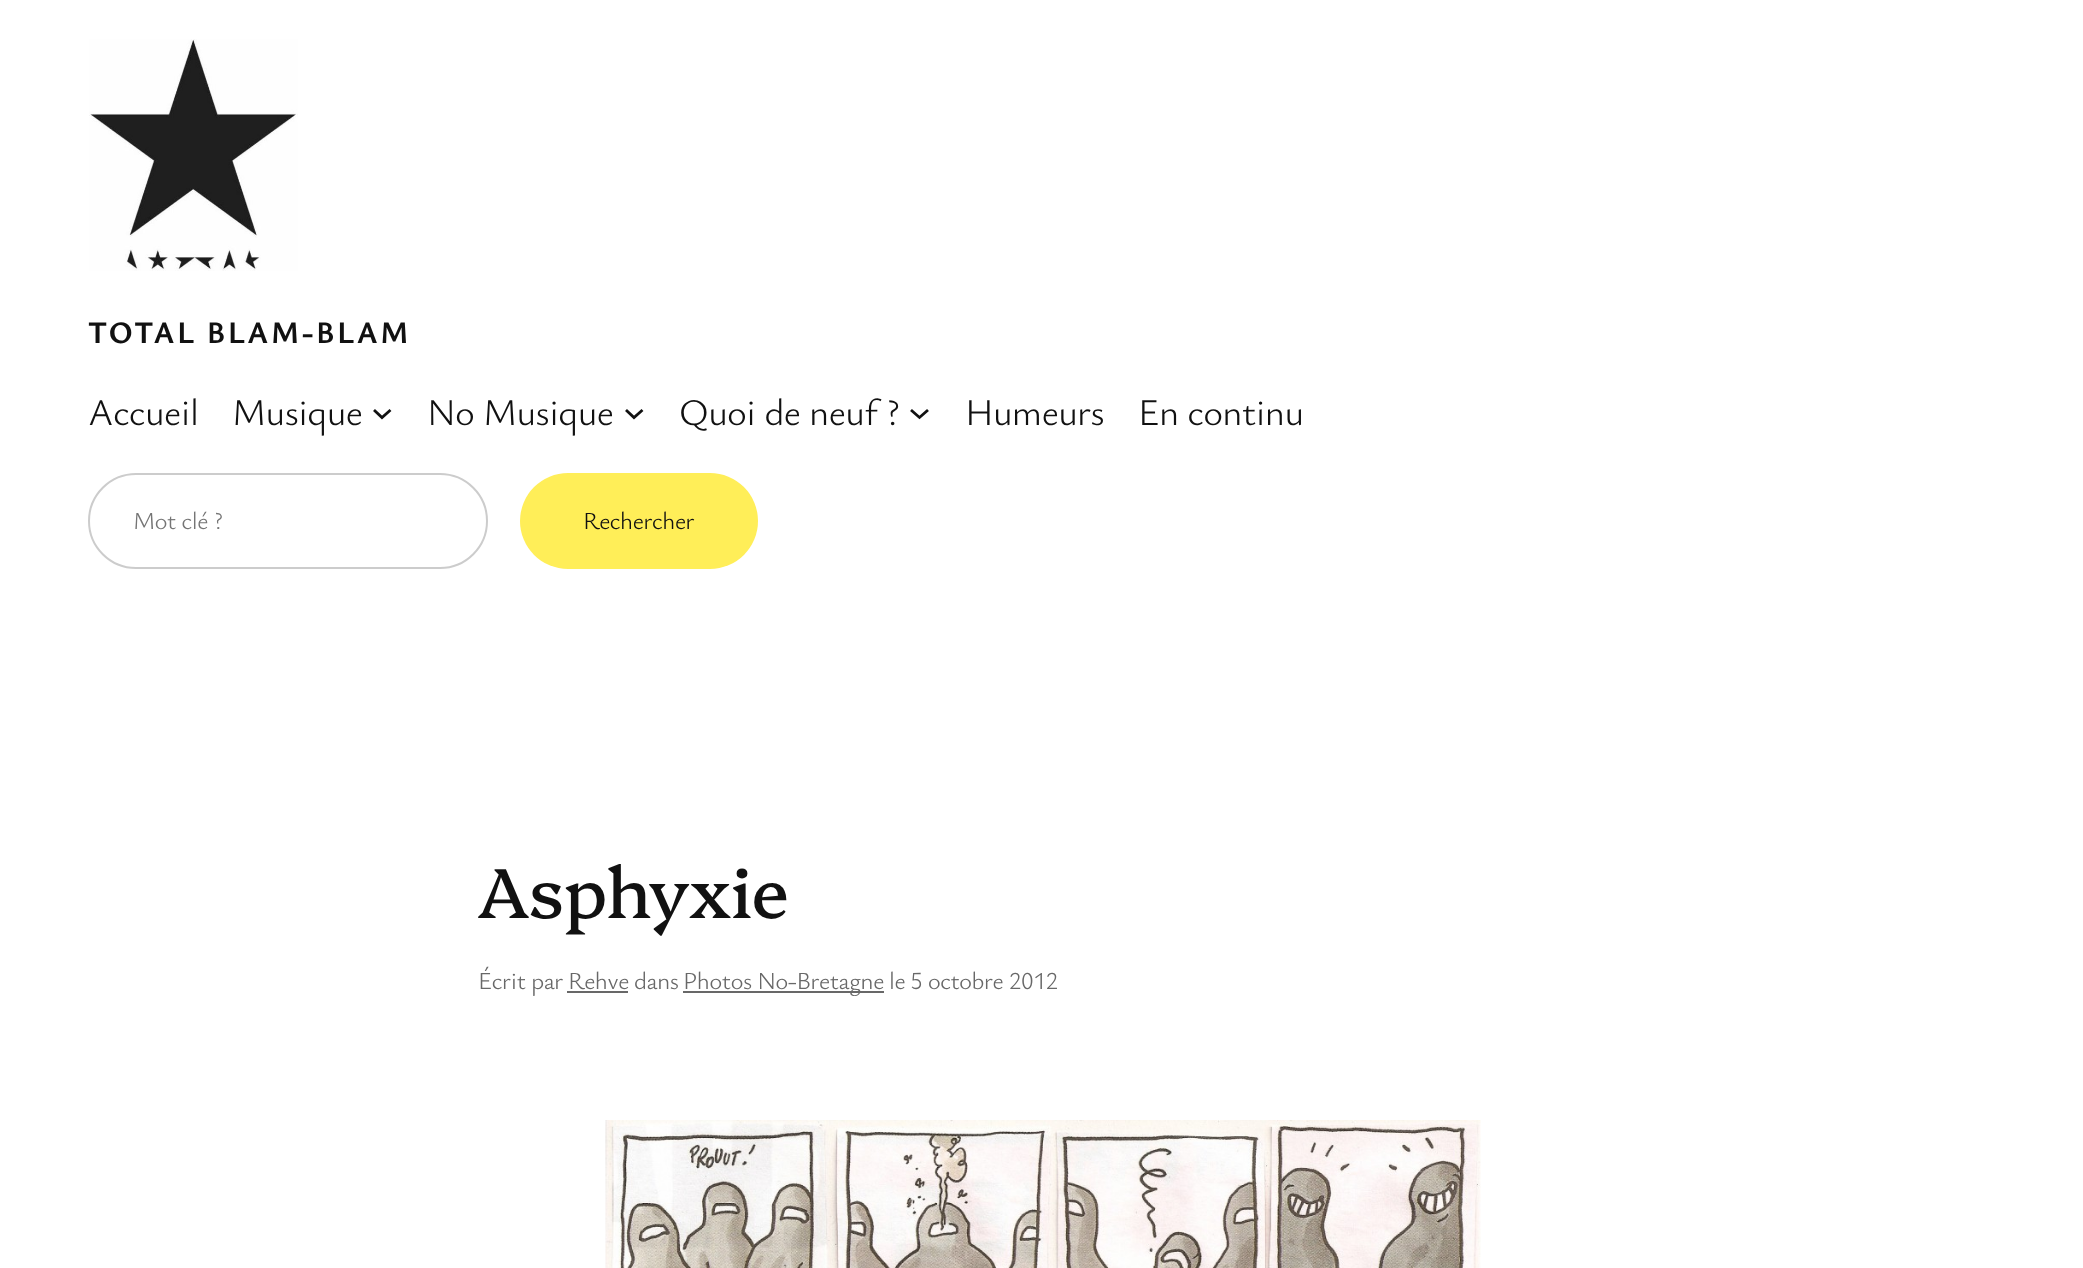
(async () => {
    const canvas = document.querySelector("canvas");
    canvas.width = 2083;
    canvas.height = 1268;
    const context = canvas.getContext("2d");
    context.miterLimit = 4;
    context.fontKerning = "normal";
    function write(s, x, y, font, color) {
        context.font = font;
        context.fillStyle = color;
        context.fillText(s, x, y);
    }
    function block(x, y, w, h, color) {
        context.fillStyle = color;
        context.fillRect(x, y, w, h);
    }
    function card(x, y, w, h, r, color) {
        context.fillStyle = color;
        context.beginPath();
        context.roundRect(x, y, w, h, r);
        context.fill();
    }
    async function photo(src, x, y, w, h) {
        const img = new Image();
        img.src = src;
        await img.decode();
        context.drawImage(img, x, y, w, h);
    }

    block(0, 0, 2083, 1268, "rgb(255, 255, 255)");
    await photo("media/1.png", 89, 39, 209, 232);
    context.letterSpacing = "2.5px";
    write("TOTAL BLAM-BLAM", 88, 343, "bold 31px Ysabeau Office", "rgb(17, 17, 17)");
    context.letterSpacing = "-0.4px";
    write("Accueil", 88, 425, "300 37.5px Ysabeau Office", "rgb(17, 17, 17)");
    write("Musique", 232, 425, "300 37.5px Ysabeau Office", "rgb(17, 17, 17)");
    context.beginPath();
    context.moveTo(374, 410);
    context.lineTo(382, 417.5);
    context.lineTo(390.5, 410);
    context.strokeStyle = "rgb(17, 17, 17)";
    context.lineWidth = 2.8;
    context.stroke();
    write("No Musique", 427, 425, "300 37.5px Ysabeau Office", "rgb(17, 17, 17)");
    context.beginPath();
    context.moveTo(626, 410);
    context.lineTo(634, 417.5);
    context.lineTo(642.5, 410);
    context.stroke();
    write("Quoi de neuf ?", 679, 425, "300 37.5px Ysabeau Office", "rgb(17, 17, 17)");
    context.beginPath();
    context.moveTo(911, 410);
    context.lineTo(919.5, 417.5);
    context.lineTo(928, 410);
    context.stroke();
    write("Humeurs", 965, 425, "300 37.5px Ysabeau Office", "rgb(17, 17, 17)");
    write("En continu", 1138, 425, "300 37.5px Ysabeau Office", "rgb(17, 17, 17)");
    context.beginPath();
    context.roundRect(89, 474, 398, 94, 47);
    context.strokeStyle = "rgb(204, 204, 204)";
    context.lineWidth = 2;
    context.stroke();
    write("Mot clé ?", 133, 529, "300 24.5px Ysabeau Office", "rgb(117, 117, 117)");
    card(520, 473, 238, 96, 48, "rgb(255, 238, 88)");
    write("Rechercher", 583, 529, "300 24.5px Ysabeau Office", "rgb(17, 17, 17)");
    context.letterSpacing = "-0.25px";
    write("Asphyxie", 478, 918, "70.5px Platypi", "rgb(17, 17, 17)");
    context.letterSpacing = "-0.4px";
    write("Écrit par", 478, 989, "300 24.5px Ysabeau Office", "rgb(104, 104, 104)");
    write("Rehve", 568, 989, "300 24.5px Ysabeau Office", "rgb(104, 104, 104)");
    block(567, 991, 61, 2, "rgb(104, 104, 104)");
    write("dans", 634, 989, "300 24.5px Ysabeau Office", "rgb(104, 104, 104)");
    block(683, 991, 201, 2, "rgb(104, 104, 104)");
    write("Photos No-Bretagne", 683, 989, "300 24.5px Ysabeau Office", "rgb(104, 104, 104)");
    write("le", 889, 989, "300 24.5px Ysabeau Office", "rgb(104, 104, 104)");
    write("5 octobre 2012", 910, 989, "300 24.5px Ysabeau Office", "rgb(104, 104, 104)");
    await photo("media/2.png", 605, 1120, 876, 148);
})();
